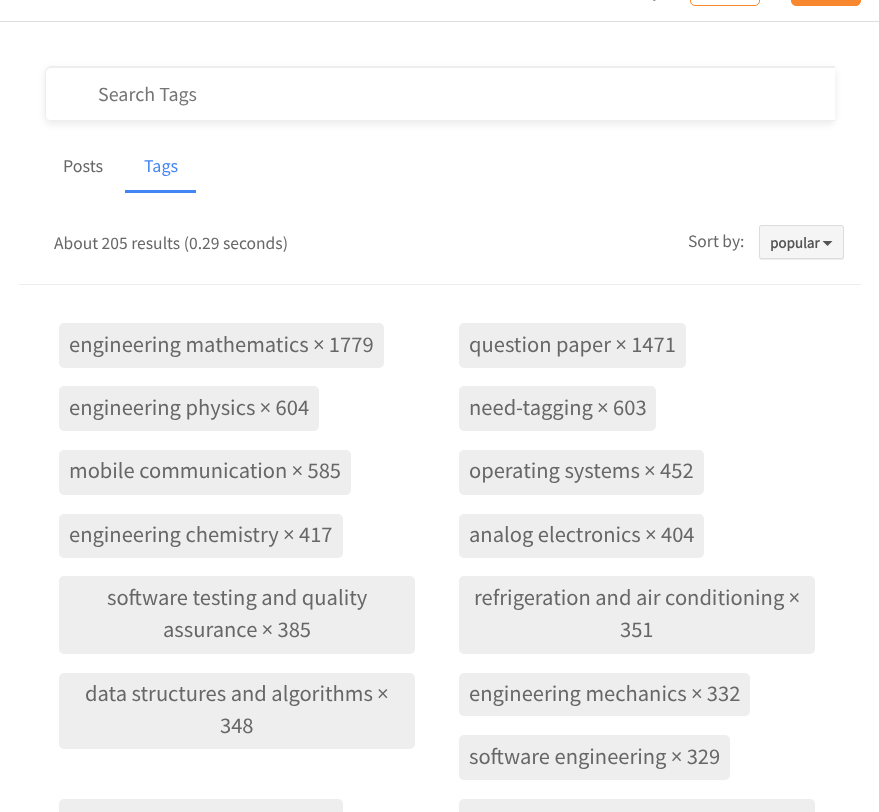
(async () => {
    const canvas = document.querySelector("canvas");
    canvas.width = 879;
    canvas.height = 812;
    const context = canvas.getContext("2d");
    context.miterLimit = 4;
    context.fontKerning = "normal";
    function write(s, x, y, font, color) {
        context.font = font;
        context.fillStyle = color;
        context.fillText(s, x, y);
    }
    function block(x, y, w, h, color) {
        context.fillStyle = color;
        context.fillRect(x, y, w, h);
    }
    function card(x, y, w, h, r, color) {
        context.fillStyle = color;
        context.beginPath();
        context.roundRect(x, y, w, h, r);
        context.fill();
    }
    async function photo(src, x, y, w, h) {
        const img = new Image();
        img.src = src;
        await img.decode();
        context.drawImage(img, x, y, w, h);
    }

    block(0, 0, 879, 812, "rgb(255, 255, 255)");
    block(0, 21, 879, 1, "rgb(222, 222, 222)");
    await photo("media/1.png", 652, 0, 4, 1);
    context.beginPath();
    context.roundRect(690.5, -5.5, 69, 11, 4.5);
    context.strokeStyle = "rgb(247, 136, 47)";
    context.stroke();
    context.fillStyle = "rgb(247, 136, 47)";
    context.beginPath();
    context.roundRect(791.5, -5.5, 69, 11, 4.5);
    context.fill();
    context.stroke();
    context.save();
    context.beginPath();
    context.moveTo(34, 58);
    context.lineTo(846, 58);
    context.lineTo(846, 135);
    context.lineTo(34, 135);
    context.closePath();
    context.moveTo(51, 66);
    context.lineTo(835, 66);
    context.lineTo(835, 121);
    context.lineTo(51, 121);
    context.bezierCurveTo(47.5, 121, 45, 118.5, 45, 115);
    context.lineTo(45, 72);
    context.bezierCurveTo(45, 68.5, 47.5, 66, 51, 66);
    context.closePath();
    context.clip("evenodd");
    context.fillStyle = "rgb(238, 238, 238)";
    context.filter = "blur(3px)";
    context.beginPath();
    context.roundRect(44, 68, 792, 57, 8);
    context.fill();
    context.filter = "none";
    context.restore();
    context.fillStyle = "rgb(238, 238, 238)";
    context.beginPath();
    context.moveTo(51, 66);
    context.lineTo(835, 66);
    context.lineTo(835, 121);
    context.lineTo(51, 121);
    context.bezierCurveTo(48, 121, 45, 118, 45, 115);
    context.lineTo(45, 72);
    context.bezierCurveTo(45, 69, 48, 66, 51, 66);
    context.closePath();
    context.moveTo(51, 68);
    context.lineTo(835, 68);
    context.lineTo(835, 120);
    context.lineTo(51, 120);
    context.bezierCurveTo(48, 120, 46, 118, 46, 115);
    context.lineTo(46, 72);
    context.bezierCurveTo(46, 70, 48, 68, 51, 68);
    context.closePath();
    context.fill("evenodd");
    write("Search Tags", 98, 101, "20px Source Sans Pro", "rgb(117, 117, 117)");
    write("Posts", 63, 172, "18px Source Sans Pro", "rgb(103, 103, 103)");
    write("Tags", 144, 172, "18px Source Sans Pro", "rgb(66, 133, 244)");
    block(125, 190, 71, 3, "rgb(66, 133, 244)");
    write("About 205 results (0.29 seconds)", 54, 249, "17.5px Source Sans Pro", "rgb(103, 103, 103)");
    write("Sort by:", 688, 247, "17.5px Source Sans Pro", "rgb(103, 103, 103)");
    context.fillStyle = "rgb(238, 238, 238)";
    context.filter = "blur(0.5px)";
    context.beginPath();
    context.roundRect(759, 226, 85, 34, 2.5);
    context.fill();
    context.filter = "none";
    card(759, 225, 85, 34, 2.5, "rgb(245, 245, 245)");
    context.beginPath();
    context.roundRect(759.5, 225.5, 84, 33, 2);
    context.strokeStyle = "rgba(0, 0, 0, 0.1)";
    context.stroke();
    write("popular", 770, 248, "bold 15px Source Sans Pro", "rgb(85, 85, 85)");
    context.beginPath();
    context.moveTo(822.5, 241);
    context.lineTo(832.5, 241);
    context.lineTo(827.5, 246);
    context.closePath();
    context.fill();
    block(19, 284, 842, 1, "rgb(238, 238, 238)");
    card(59, 323, 325, 45, 5, "rgb(238, 238, 238)");
    write("engineering mathematics × 1779", 69, 352, "22.5px Source Sans Pro", "rgb(103, 103, 103)");
    card(459, 323, 227, 45, 5, "rgb(238, 238, 238)");
    write("question paper × 1471", 469, 352, "22.5px Source Sans Pro", "rgb(103, 103, 103)");
    card(59, 386, 260, 45, 5, "rgb(238, 238, 238)");
    write("engineering physics × 604", 69, 415, "22.5px Source Sans Pro", "rgb(103, 103, 103)");
    card(459, 386, 197, 45, 5, "rgb(238, 238, 238)");
    write("need-tagging × 603", 469, 415, "22.5px Source Sans Pro", "rgb(103, 103, 103)");
    card(59, 450, 292, 45, 5, "rgb(238, 238, 238)");
    write("mobile communication × 585", 69, 478, "22.5px Source Sans Pro", "rgb(103, 103, 103)");
    card(459, 450, 245, 45, 5, "rgb(238, 238, 238)");
    write("operating systems × 452", 469, 478, "22.5px Source Sans Pro", "rgb(103, 103, 103)");
    card(59, 514, 284, 44, 5, "rgb(238, 238, 238)");
    write("engineering chemistry × 417", 69, 542, "22.5px Source Sans Pro", "rgb(103, 103, 103)");
    card(459, 514, 245, 44, 5, "rgb(238, 238, 238)");
    write("analog electronics × 404", 469, 542, "22.5px Source Sans Pro", "rgb(103, 103, 103)");
    card(59, 576, 356, 78, 5, "rgb(238, 238, 238)");
    write("software testing and quality", 107, 605, "22.5px Source Sans Pro", "rgb(103, 103, 103)");
    write("assurance × 385", 163, 637, "22.5px Source Sans Pro", "rgb(103, 103, 103)");
    card(459, 576, 356, 78, 5, "rgb(238, 238, 238)");
    write("refrigeration and air conditioning ×", 474, 605, "22.5px Source Sans Pro", "rgb(103, 103, 103)");
    write("351", 620, 637, "22.5px Source Sans Pro", "rgb(103, 103, 103)");
    card(59, 673, 356, 76, 5, "rgb(238, 238, 238)");
    write("data structures and algorithms ×", 85, 701, "22.5px Source Sans Pro", "rgb(103, 103, 103)");
    write("348", 220, 733, "22.5px Source Sans Pro", "rgb(103, 103, 103)");
    card(459, 673, 291, 43, 5, "rgb(238, 238, 238)");
    write("engineering mechanics × 332", 469, 701, "22.5px Source Sans Pro", "rgb(103, 103, 103)");
    card(459, 735, 271, 45, 5, "rgb(238, 238, 238)");
    write("software engineering × 329", 469, 764, "22.5px Source Sans Pro", "rgb(103, 103, 103)");
    card(59, 799, 284, 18, 5, "rgb(238, 238, 238)");
    card(459, 799, 356, 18, 5, "rgb(238, 238, 238)");
})();
